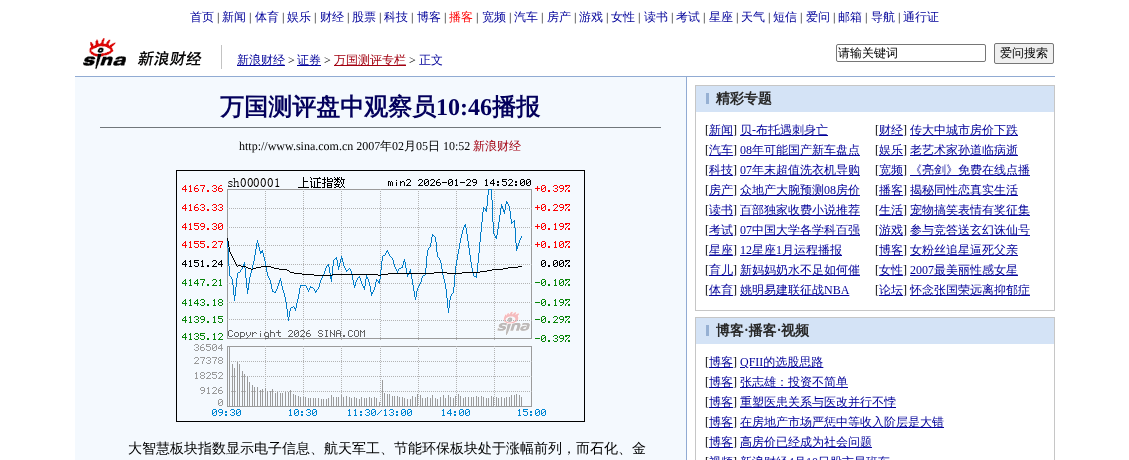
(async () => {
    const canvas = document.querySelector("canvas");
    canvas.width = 1129;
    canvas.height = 460;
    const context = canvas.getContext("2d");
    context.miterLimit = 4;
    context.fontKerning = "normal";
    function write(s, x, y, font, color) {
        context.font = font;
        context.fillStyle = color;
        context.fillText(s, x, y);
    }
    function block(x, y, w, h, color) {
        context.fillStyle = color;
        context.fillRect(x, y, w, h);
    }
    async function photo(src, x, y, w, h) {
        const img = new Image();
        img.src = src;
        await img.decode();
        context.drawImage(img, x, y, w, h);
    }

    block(0, 0, 1129, 460, "rgb(255, 255, 255)");
    write("首页", 190, 21, "500 12px WenQuanYi Zen Hei", "rgb(0, 0, 153)");
    write("|", 217, 21, "12px Liberation Serif", "rgb(0, 0, 0)");
    write("新闻", 222, 21, "500 12px WenQuanYi Zen Hei", "rgb(0, 0, 153)");
    write("|", 249, 21, "12px Liberation Serif", "rgb(0, 0, 0)");
    write("体育", 255, 21, "500 12px WenQuanYi Zen Hei", "rgb(0, 0, 153)");
    write("|", 282, 21, "12px Liberation Serif", "rgb(0, 0, 0)");
    write("娱乐", 287, 21, "500 12px WenQuanYi Zen Hei", "rgb(0, 0, 153)");
    write("|", 314, 21, "12px Liberation Serif", "rgb(0, 0, 0)");
    write("财经", 320, 21, "500 12px WenQuanYi Zen Hei", "rgb(0, 0, 153)");
    write("|", 347, 21, "12px Liberation Serif", "rgb(0, 0, 0)");
    write("股票", 352, 21, "500 12px WenQuanYi Zen Hei", "rgb(0, 0, 153)");
    write("|", 379, 21, "12px Liberation Serif", "rgb(0, 0, 0)");
    write("科技", 384, 21, "500 12px WenQuanYi Zen Hei", "rgb(0, 0, 153)");
    write("|", 411, 21, "12px Liberation Serif", "rgb(0, 0, 0)");
    write("博客", 417, 21, "500 12px WenQuanYi Zen Hei", "rgb(0, 0, 153)");
    write("|", 444, 21, "12px Liberation Serif", "rgb(0, 0, 0)");
    write("播客", 449, 21, "500 12px WenQuanYi Zen Hei", "rgb(255, 0, 0)");
    write("|", 476, 21, "12px Liberation Serif", "rgb(0, 0, 0)");
    write("宽频", 482, 21, "500 12px WenQuanYi Zen Hei", "rgb(0, 0, 153)");
    write("|", 509, 21, "12px Liberation Serif", "rgb(0, 0, 0)");
    write("汽车", 514, 21, "500 12px WenQuanYi Zen Hei", "rgb(0, 0, 153)");
    write("|", 541, 21, "12px Liberation Serif", "rgb(0, 0, 0)");
    write("房产", 547, 21, "500 12px WenQuanYi Zen Hei", "rgb(0, 0, 153)");
    write("|", 574, 21, "12px Liberation Serif", "rgb(0, 0, 0)");
    write("游戏", 579, 21, "500 12px WenQuanYi Zen Hei", "rgb(0, 0, 153)");
    write("|", 606, 21, "12px Liberation Serif", "rgb(0, 0, 0)");
    write("女性", 611, 21, "500 12px WenQuanYi Zen Hei", "rgb(0, 0, 153)");
    write("|", 638, 21, "12px Liberation Serif", "rgb(0, 0, 0)");
    write("读书", 644, 21, "500 12px WenQuanYi Zen Hei", "rgb(0, 0, 153)");
    write("|", 671, 21, "12px Liberation Serif", "rgb(0, 0, 0)");
    write("考试", 676, 21, "500 12px WenQuanYi Zen Hei", "rgb(0, 0, 153)");
    write("|", 703, 21, "12px Liberation Serif", "rgb(0, 0, 0)");
    write("星座", 709, 21, "500 12px WenQuanYi Zen Hei", "rgb(0, 0, 153)");
    write("|", 736, 21, "12px Liberation Serif", "rgb(0, 0, 0)");
    write("天气", 741, 21, "500 12px WenQuanYi Zen Hei", "rgb(0, 0, 153)");
    write("|", 768, 21, "12px Liberation Serif", "rgb(0, 0, 0)");
    write("短信", 773, 21, "500 12px WenQuanYi Zen Hei", "rgb(0, 0, 153)");
    write("|", 800, 21, "12px Liberation Serif", "rgb(0, 0, 0)");
    write("爱问", 806, 21, "500 12px WenQuanYi Zen Hei", "rgb(0, 0, 153)");
    write("|", 833, 21, "12px Liberation Serif", "rgb(0, 0, 0)");
    write("邮箱", 838, 21, "500 12px WenQuanYi Zen Hei", "rgb(0, 0, 153)");
    write("|", 865, 21, "12px Liberation Serif", "rgb(0, 0, 0)");
    write("导航", 871, 21, "500 12px WenQuanYi Zen Hei", "rgb(0, 0, 153)");
    write("|", 898, 21, "12px Liberation Serif", "rgb(0, 0, 0)");
    write("通行证", 903, 21, "500 12px WenQuanYi Zen Hei", "rgb(0, 0, 153)");
    await photo("media/1.png", 83, 38, 119, 32);
    block(221, 45, 1, 24, "rgb(195, 195, 195)");
    block(237, 65, 48, 1, "rgb(0, 0, 153)");
    write("新浪财经", 237, 64, "500 12px WenQuanYi Zen Hei", "rgb(0, 0, 153)");
    write(">", 288, 64, "12px Liberation Serif", "rgb(0, 0, 0)");
    block(297, 65, 24, 1, "rgb(0, 0, 153)");
    write("证券", 297, 64, "500 12px WenQuanYi Zen Hei", "rgb(0, 0, 153)");
    write(">", 324, 64, "12px Liberation Serif", "rgb(0, 0, 0)");
    block(334, 65, 72, 1, "rgb(162, 0, 16)");
    write("万国测评专栏", 334, 64, "500 12px WenQuanYi Zen Hei", "rgb(162, 0, 16)");
    write(">", 409, 64, "12px Liberation Serif", "rgb(0, 0, 0)");
    write("正文", 419, 64, "500 12px WenQuanYi Zen Hei", "rgb(0, 0, 153)");
    context.beginPath();
    context.roundRect(836.5, 44.5, 149, 17, 1.5);
    context.strokeStyle = "rgb(118, 118, 118)";
    context.stroke();
    write("请输关键词", 838, 57, "500 12px WenQuanYi Zen Hei", "rgb(0, 0, 0)");
    context.fillStyle = "rgb(239, 239, 239)";
    context.beginPath();
    context.roundRect(994.5, 43.5, 59, 20, 1.5);
    context.fill();
    context.stroke();
    write("爱问搜索", 1000, 57, "500 12px WenQuanYi Zen Hei", "rgb(0, 0, 0)");
    block(75, 77, 611, 383, "rgb(244, 249, 254)");
    block(75, 76, 980, 1, "rgb(145, 171, 211)");
    block(686, 76, 1, 384, "rgb(145, 171, 211)");
    block(100, 127, 561, 1, "rgb(113, 119, 123)");
    write("万国测评盘中观察员", 220, 115, "bold 24px WenQuanYi Zen Hei", "rgb(3, 0, 92)");
    write("10:46", 436, 115, "bold 24px Liberation Serif", "rgb(3, 0, 92)");
    write("播报", 492, 115, "bold 24px WenQuanYi Zen Hei", "rgb(3, 0, 92)");
    write("http://www.sina.com.cn 2007", 239, 150, "12px Liberation Serif", "rgb(0, 0, 0)");
    write("年", 380, 150, "500 12px WenQuanYi Zen Hei", "rgb(0, 0, 0)");
    write("02", 392, 150, "12px Liberation Serif", "rgb(0, 0, 0)");
    write("月", 404, 150, "500 12px WenQuanYi Zen Hei", "rgb(0, 0, 0)");
    write("05", 416, 150, "12px Liberation Serif", "rgb(0, 0, 0)");
    write("日", 428, 150, "500 12px WenQuanYi Zen Hei", "rgb(0, 0, 0)");
    write("10:52", 443, 150, "12px Liberation Serif", "rgb(0, 0, 0)");
    write("新浪财经", 473, 150, "500 12px WenQuanYi Zen Hei", "rgb(162, 0, 16)");
    context.strokeStyle = "rgb(0, 0, 0)";
    context.strokeRect(176.5, 170.5, 408, 251);
    await photo("media/2.png", 182, 177, 388, 239);
    write("大智慧板块指数显示电子信息、航天军工、节能环保板块处于涨幅前列，而石化、金", 128, 453, "500 14px WenQuanYi Zen Hei", "rgb(0, 0, 0)");
    await photo("media/3.png", 695, 85, 360, 226);
    await photo("media/4.png", 695, 317, 360, 143);
})();
